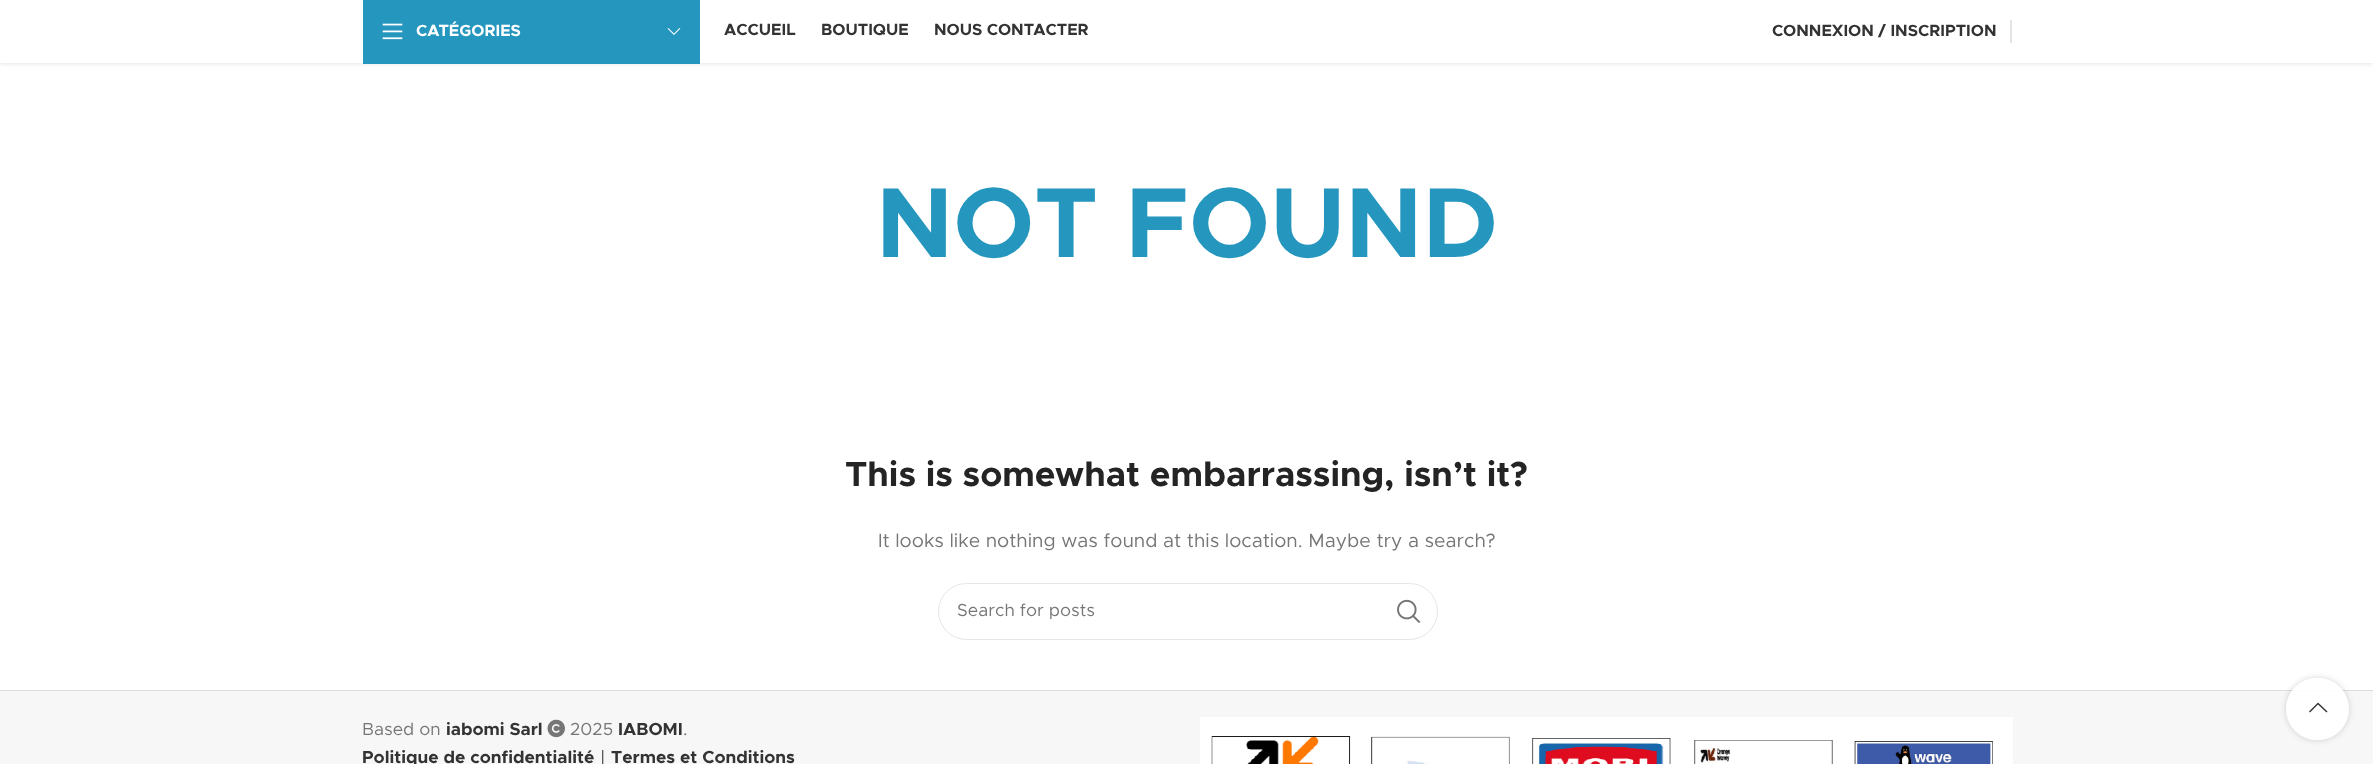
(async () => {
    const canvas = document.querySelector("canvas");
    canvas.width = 2373;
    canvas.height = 764;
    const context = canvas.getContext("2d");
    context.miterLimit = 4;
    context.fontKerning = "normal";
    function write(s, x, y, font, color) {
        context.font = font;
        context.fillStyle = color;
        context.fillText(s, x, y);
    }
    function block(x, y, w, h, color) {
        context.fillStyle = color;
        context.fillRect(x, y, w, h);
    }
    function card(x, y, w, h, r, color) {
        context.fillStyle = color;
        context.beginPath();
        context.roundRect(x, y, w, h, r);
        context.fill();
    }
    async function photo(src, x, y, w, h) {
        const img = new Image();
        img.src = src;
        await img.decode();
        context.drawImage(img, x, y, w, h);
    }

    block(0, 0, 2373, 764, "rgb(255, 255, 255)");
    context.fillStyle = "rgba(0, 0, 0, 0.1)";
    context.filter = "blur(2px)";
    context.beginPath();
    context.rect(0, 1, 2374, 63);
    context.fill();
    context.filter = "none";
    block(0, 0, 2373, 63, "rgb(255, 255, 255)");
    block(363, 0, 337, 64, "rgb(37, 150, 190)");
    await photo("media/1.png", 382, 23, 21, 17);
    write("CATÉGORIES", 416, 36, "bold 16.25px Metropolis", "rgb(255, 255, 255)");
    await photo("media/2.png", 667, 28, 14, 7);
    write("ACCUEIL", 724, 35, "bold 16.25px Metropolis", "rgb(51, 51, 51)");
    write("BOUTIQUE", 821, 35, "bold 16.25px Metropolis", "rgb(51, 51, 51)");
    write("NOUS CONTACTER", 934, 35, "bold 16.25px Metropolis", "rgb(51, 51, 51)");
    write("CONNEXION / INSCRIPTION", 1772, 36, "bold 16.25px Metropolis", "rgb(51, 51, 51)");
    block(2010, 20, 2, 23, "rgb(228, 228, 228)");
    write("NOT FOUND", 876, 257, "bold 99.75px Metropolis", "rgb(37, 150, 190)");
    write("This is somewhat embarrassing, isn’t it?", 845, 486, "bold 35px Metropolis", "rgb(36, 36, 36)");
    write("It looks like nothing was found at this location. Maybe try a search?", 878, 547, "19.25px Metropolis", "rgb(118, 118, 118)");
    context.beginPath();
    context.roundRect(938.5, 583.5, 499, 56, 28);
    context.strokeStyle = "rgb(230, 230, 230)";
    context.stroke();
    write("Search for posts", 957, 616, "17.5px Metropolis", "rgb(118, 118, 118)");
    await photo("media/3.png", 1397, 599, 24, 24);
    block(0, 691, 2373, 73, "rgb(247, 247, 247)");
    block(0, 690, 2373, 1, "rgb(221, 221, 221)");
    write("Based on", 362, 735, "17.5px Metropolis", "rgb(118, 118, 118)");
    write("iabomi Sarl", 446, 735, "bold 17.5px Metropolis", "rgb(51, 51, 51)");
    await photo("media/4.png", 547, 719, 18, 19);
    write("2025", 570, 735, "17.5px Metropolis", "rgb(118, 118, 118)");
    write("IABOMI", 618, 735, "bold 17.5px Metropolis", "rgb(51, 51, 51)");
    write(".", 683, 735, "17.5px Metropolis", "rgb(118, 118, 118)");
    write("Politique de confidentialité", 362, 763, "bold 17.5px Metropolis", "rgb(51, 51, 51)");
    write("｜", 594, 763, "500 17.5px WenQuanYi Zen Hei", "rgb(51, 51, 51)");
    write("Termes et Conditions", 611, 763, "bold 17.5px Metropolis", "rgb(51, 51, 51)");
    await photo("media/5.png", 1200, 717, 813, 47);
    context.save();
    context.beginPath();
    context.moveTo(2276, 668);
    context.lineTo(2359, 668);
    context.lineTo(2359, 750);
    context.lineTo(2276, 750);
    context.closePath();
    context.moveTo(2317, 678);
    context.lineTo(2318, 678);
    context.bezierCurveTo(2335, 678, 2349, 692, 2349, 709);
    context.bezierCurveTo(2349, 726, 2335, 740, 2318, 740);
    context.lineTo(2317, 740);
    context.bezierCurveTo(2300, 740, 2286, 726, 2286, 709);
    context.bezierCurveTo(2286, 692, 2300, 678, 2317, 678);
    context.closePath();
    context.clip("evenodd");
    context.fillStyle = "rgba(0, 0, 0, 0.17)";
    context.filter = "blur(3px)";
    context.beginPath();
    context.roundRect(2286, 678, 63, 62, 31);
    context.fill();
    context.filter = "none";
    context.restore();
    card(2286, 678, 63, 62, 31, "rgba(255, 255, 255, 0.9)");
    context.fillStyle = "rgb(51, 51, 51)";
    context.beginPath();
    context.moveTo(2326.5, 712.5);
    context.lineTo(2327.5, 711.5);
    context.lineTo(2318, 702.5);
    context.lineTo(2309, 711.5);
    context.lineTo(2310, 712.5);
    context.lineTo(2318, 704.5);
    context.closePath();
    context.fill();
})();
